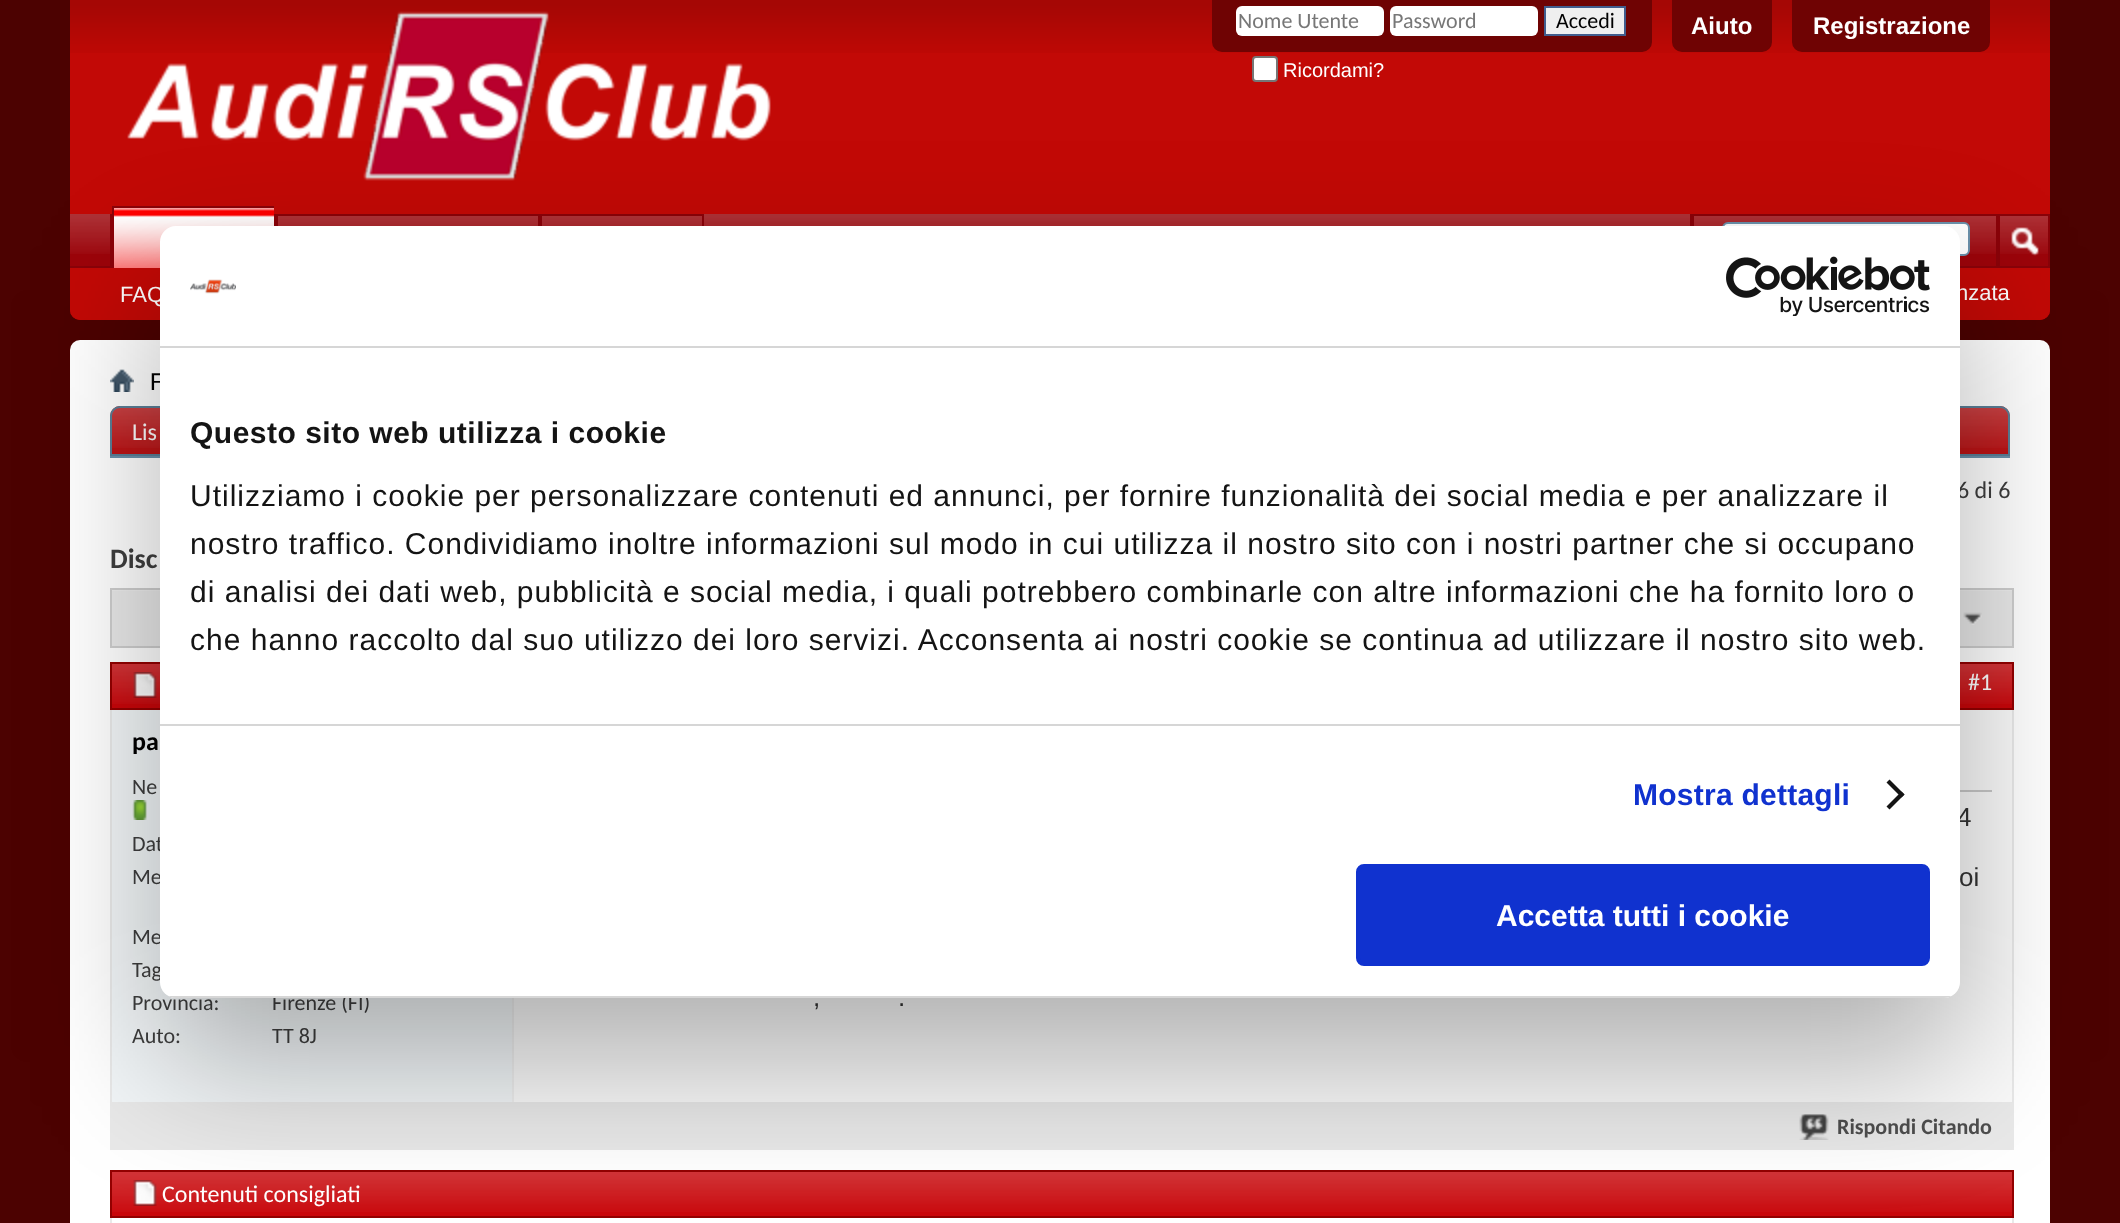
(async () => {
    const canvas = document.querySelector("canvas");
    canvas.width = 2120;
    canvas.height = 1223;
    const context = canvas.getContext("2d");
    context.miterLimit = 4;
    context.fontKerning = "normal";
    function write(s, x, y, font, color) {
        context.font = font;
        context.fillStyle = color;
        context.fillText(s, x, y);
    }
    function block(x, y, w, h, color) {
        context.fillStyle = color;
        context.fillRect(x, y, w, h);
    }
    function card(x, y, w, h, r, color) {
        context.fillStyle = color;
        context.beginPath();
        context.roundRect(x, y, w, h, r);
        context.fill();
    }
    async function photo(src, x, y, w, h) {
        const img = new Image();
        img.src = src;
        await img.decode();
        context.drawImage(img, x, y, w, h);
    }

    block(0, 0, 2120, 1223, "rgb(76, 2, 1)");
    context.fillStyle = "rgb(194, 9, 6)";
    context.beginPath();
    context.roundRect(70, 0, 1980, 320, [0, 0, 10, 10]);
    context.fill();
    await photo("media/1.png", 70, 0, 1980, 53);
    await photo("media/2.png", 127, 11, 644, 170);
    context.fillStyle = "rgb(111, 3, 3)";
    context.beginPath();
    context.roundRect(1212, 0, 440, 52, [0, 0, 10, 10]);
    context.fill();
    card(1236, 6, 148, 30, 6, "rgb(255, 255, 255)");
    write("Nome Utente", 1238, 28, "22px Carlito", "rgb(119, 119, 119)");
    card(1390, 6, 148, 30, 6, "rgb(255, 255, 255)");
    write("Password", 1392, 28, "22px Carlito", "rgb(119, 119, 119)");
    context.fillStyle = "rgb(239, 239, 239)";
    context.beginPath();
    context.rect(1545, 7, 80, 28);
    context.fill();
    context.strokeStyle = "rgb(65, 93, 141)";
    context.lineWidth = 2;
    context.stroke();
    write("Accedi", 1556, 28, "22px Carlito", "rgb(0, 0, 0)");
    context.fillStyle = "rgb(255, 255, 255)";
    context.beginPath();
    context.roundRect(1253, 57, 24, 24, 3);
    context.fill();
    context.strokeStyle = "rgb(118, 118, 118)";
    context.stroke();
    write("Ricordami?", 1283, 77, "20px Liberation Sans", "rgb(255, 255, 255)");
    context.fillStyle = "rgb(111, 3, 3)";
    context.beginPath();
    context.roundRect(1672, 0, 100, 52, [0, 0, 10, 10]);
    context.fill();
    write("Aiuto", 1691, 34, "bold 24px Liberation Sans", "rgb(255, 255, 255)");
    context.fillStyle = "rgb(111, 3, 3)";
    context.beginPath();
    context.roundRect(1792, 0, 198, 52, [0, 0, 10, 10]);
    context.fill();
    write("Registrazione", 1813, 34, "bold 24px Liberation Sans", "rgb(255, 255, 255)");
    context.fillStyle = "rgb(194, 9, 6)";
    context.beginPath();
    context.roundRect(70, 214, 1980, 106, [0, 0, 10, 10]);
    context.fill();
    block(70, 214, 1978, 52, "rgb(156, 4, 10)");
    await photo("media/3.png", 70, 214, 1978, 40);
    block(274, 214, 2, 12, "rgb(138, 3, 9)");
    block(110, 214, 2, 52, "rgb(138, 3, 9)");
    block(70, 266, 1980, 2, "rgb(138, 3, 9)");
    block(114, 208, 160, 60, "rgb(255, 0, 0)");
    await photo("media/4.png", 114, 208, 160, 60);
    block(112, 206, 162, 2, "rgb(138, 3, 9)");
    block(112, 206, 2, 62, "rgb(138, 3, 9)");
    block(538, 214, 2, 12, "rgb(138, 3, 9)");
    block(278, 216, 260, 10, "rgb(156, 4, 10)");
    await photo("media/5.png", 278, 216, 260, 10);
    block(276, 214, 262, 2, "rgb(138, 3, 9)");
    block(276, 214, 2, 12, "rgb(138, 3, 9)");
    block(702, 214, 2, 12, "rgb(138, 3, 9)");
    block(542, 216, 160, 10, "rgb(156, 4, 10)");
    await photo("media/6.png", 542, 216, 160, 10);
    block(540, 214, 162, 2, "rgb(138, 3, 9)");
    block(540, 214, 2, 12, "rgb(138, 3, 9)");
    write("FAQ", 120, 302, "22px Liberation Sans", "rgb(255, 255, 255)");
    block(1690, 214, 2, 12, "rgb(138, 3, 9)");
    block(1692, 214, 304, 2, "rgb(138, 3, 9)");
    block(1692, 214, 2, 12, "rgb(138, 3, 9)");
    context.fillStyle = "rgb(255, 255, 255)";
    context.beginPath();
    context.roundRect(1723, 223, 246, 32, 5);
    context.fill();
    context.strokeStyle = "rgb(107, 145, 171)";
    context.stroke();
    block(2048, 214, 2, 52, "rgb(138, 3, 9)");
    block(1996, 214, 2, 52, "rgb(138, 3, 9)");
    block(1998, 214, 50, 2, "rgb(138, 3, 9)");
    block(1998, 214, 2, 52, "rgb(138, 3, 9)");
    await photo("media/7.png", 2011, 227, 28, 29);
    write("nzata", 1956, 300, "22px Liberation Sans", "rgb(255, 255, 255)");
    card(70, 340, 1980, 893, 10, "rgb(255, 255, 255)");
    await photo("media/8.png", 110, 369, 24, 23);
    write("F", 150, 390, "26px Carlito", "rgb(0, 0, 0)");
    context.fillStyle = "rgb(188, 20, 22)";
    context.beginPath();
    context.roundRect(110, 406, 1900, 50, [10, 10, 0, 0]);
    context.fill();
    await photo("media/9.png", 110, 408, 1900, 40);
    context.beginPath();
    context.roundRect(111, 407, 1898, 48, [9, 9, 0, 0]);
    context.strokeStyle = "rgb(90, 127, 151)";
    context.stroke();
    write("Lis", 132, 440, "24px Carlito", "rgb(255, 255, 255)");
    block(110, 456, 1900, 2, "rgb(107, 145, 171)");
    write("6 di 6", 1957, 498, "24px Carlito", "rgb(62, 62, 62)");
    write("Disc", 110, 568, "bold 28px Carlito", "rgb(62, 62, 62)");
    block(112, 591, 1900, 55, "rgb(233, 233, 233)");
    block(110, 590, 1904, 1, "rgb(237, 237, 237)");
    context.strokeStyle = "rgb(206, 206, 206)";
    context.strokeRect(111, 589, 1902, 58);
    await photo("media/10.png", 1963, 612, 19, 13);
    context.strokeStyle = "rgb(233, 233, 233)";
    context.strokeRect(111, 663, 1902, 486);
    block(112, 664, 1900, 44, "rgb(201, 6, 10)");
    await photo("media/11.png", 112, 664, 1900, 40);
    context.strokeStyle = "rgb(147, 0, 0)";
    context.strokeRect(111, 663, 1902, 46);
    await photo("media/12.png", 133, 672, 24, 26);
    write("#1", 1968, 690, "24px Carlito", "rgb(255, 255, 255)");
    block(112, 710, 400, 392, "rgb(242, 246, 248)");
    write("pa", 132, 750, "bold 26px Carlito", "rgb(0, 0, 0)");
    write("Ne", 132, 794, "22px Carlito", "rgb(62, 62, 62)");
    await photo("media/13.png", 132, 800, 15, 20);
    write("Dat", 132, 851, "22px Carlito", "rgb(62, 62, 62)");
    write("Me", 132, 884, "22px Carlito", "rgb(62, 62, 62)");
    write("Me", 132, 944, "22px Carlito", "rgb(62, 62, 62)");
    write("Tag", 132, 977, "22px Carlito", "rgb(62, 62, 62)");
    write("Provincia:", 132, 1010, "22px Carlito", "rgb(62, 62, 62)");
    write("Firenze (FI)", 272, 1010, "22px Carlito", "rgb(62, 62, 62)");
    write("Auto:", 132, 1043, "22px Carlito", "rgb(62, 62, 62)");
    write("TT 8J", 272, 1043, "22px Carlito", "rgb(62, 62, 62)");
    block(514, 710, 1498, 392, "rgb(250, 250, 250)");
    block(512, 998, 2, 104, "rgb(239, 239, 239)");
    block(1960, 790, 32, 2, "rgb(200, 200, 200)");
    write("4", 1957, 826, "26px Liberation Sans", "rgb(51, 51, 51)");
    write("oi", 1959, 886, "26px Liberation Sans", "rgb(51, 51, 51)");
    write(",", 813, 1006, "26px Liberation Sans", "rgb(51, 51, 51)");
    write(".", 898, 1006, "26px Liberation Sans", "rgb(51, 51, 51)");
    block(112, 1102, 1900, 46, "rgb(233, 233, 233)");
    await photo("media/14.png", 1799, 1114, 30, 26);
    write("Rispondi Citando", 1837, 1134, "bold 22px Carlito", "rgb(78, 78, 78)");
    context.strokeStyle = "rgb(233, 233, 233)";
    context.strokeRect(111, 1171, 1902, 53);
    block(112, 1172, 1900, 44, "rgb(201, 6, 10)");
    await photo("media/11.png", 112, 1172, 1900, 40);
    context.strokeStyle = "rgb(147, 0, 0)";
    context.strokeRect(111, 1171, 1902, 46);
    await photo("media/12.png", 133, 1180, 24, 26);
    write("Contenuti consigliati", 162, 1202, "24px Carlito", "rgb(255, 255, 255)");
    context.fillStyle = "rgba(0, 0, 0, 0.3)";
    context.filter = "blur(68px)";
    context.beginPath();
    context.roundRect(160, 290, 1800, 772, 16);
    context.fill();
    context.filter = "none";
    card(160, 226, 1800, 772, 16, "rgb(255, 255, 255)");
    block(160, 346, 1800, 2, "rgb(214, 214, 214)");
    await photo("media/15.png", 190, 279, 46, 15);
    await photo("media/16.png", 1726, 256, 204, 60);
    block(160, 724, 1800, 2, "rgb(214, 214, 214)");
    context.letterSpacing = "0.5px";
    write("Questo sito web utilizza i cookie", 190, 443, "bold 30px Liberation Sans", "rgb(20, 20, 20)");
    context.letterSpacing = "1px";
    write("Utilizziamo i cookie per personalizzare contenuti ed annunci, per fornire funzionalità dei social media e per analizzare il", 190, 506, "30px Liberation Sans", "rgb(20, 20, 20)");
    write("nostro traffico. Condividiamo inoltre informazioni sul modo in cui utilizza il nostro sito con i nostri partner che si occupano", 190, 554, "30px Liberation Sans", "rgb(20, 20, 20)");
    write("di analisi dei dati web, pubblicità e social media, i quali potrebbero combinarle con altre informazioni che ha fornito loro o", 190, 602, "30px Liberation Sans", "rgb(20, 20, 20)");
    write("che hanno raccolto dal suo utilizzo dei loro servizi. Acconsenta ai nostri cookie se continua ad utilizzare il nostro sito web.", 190, 650, "30px Liberation Sans", "rgb(20, 20, 20)");
    context.letterSpacing = "0.25px";
    write("Mostra dettagli", 1633, 805, "bold 30px Liberation Sans", "rgb(16, 50, 207)");
    context.fillStyle = "rgb(20, 20, 20)";
    context.beginPath();
    context.moveTo(1889.5, 779.5);
    context.lineTo(1904.5, 794.5);
    context.lineTo(1901.5, 797.5);
    context.lineTo(1886.5, 782.5);
    context.closePath();
    context.fill();
    context.beginPath();
    context.moveTo(1901.5, 791.5);
    context.lineTo(1904.5, 794.5);
    context.lineTo(1889.5, 809.5);
    context.lineTo(1886.5, 806.5);
    context.closePath();
    context.fill();
    context.save();
    context.beginPath();
    context.roundRect(160, 226, 1800, 772, 16);
    context.clip();
    block(160, 996, 1800, 2, "rgb(214, 214, 214)");
    context.restore();
    context.fillStyle = "rgb(16, 50, 207)";
    context.beginPath();
    context.roundRect(1358, 866, 570, 98, 6);
    context.fill();
    context.strokeStyle = "rgb(16, 50, 207)";
    context.lineWidth = 4;
    context.stroke();
    context.letterSpacing = "0px";
    write("Accetta tutti i cookie", 1496, 926, "bold 30px Liberation Sans", "rgb(255, 255, 255)");
})();
